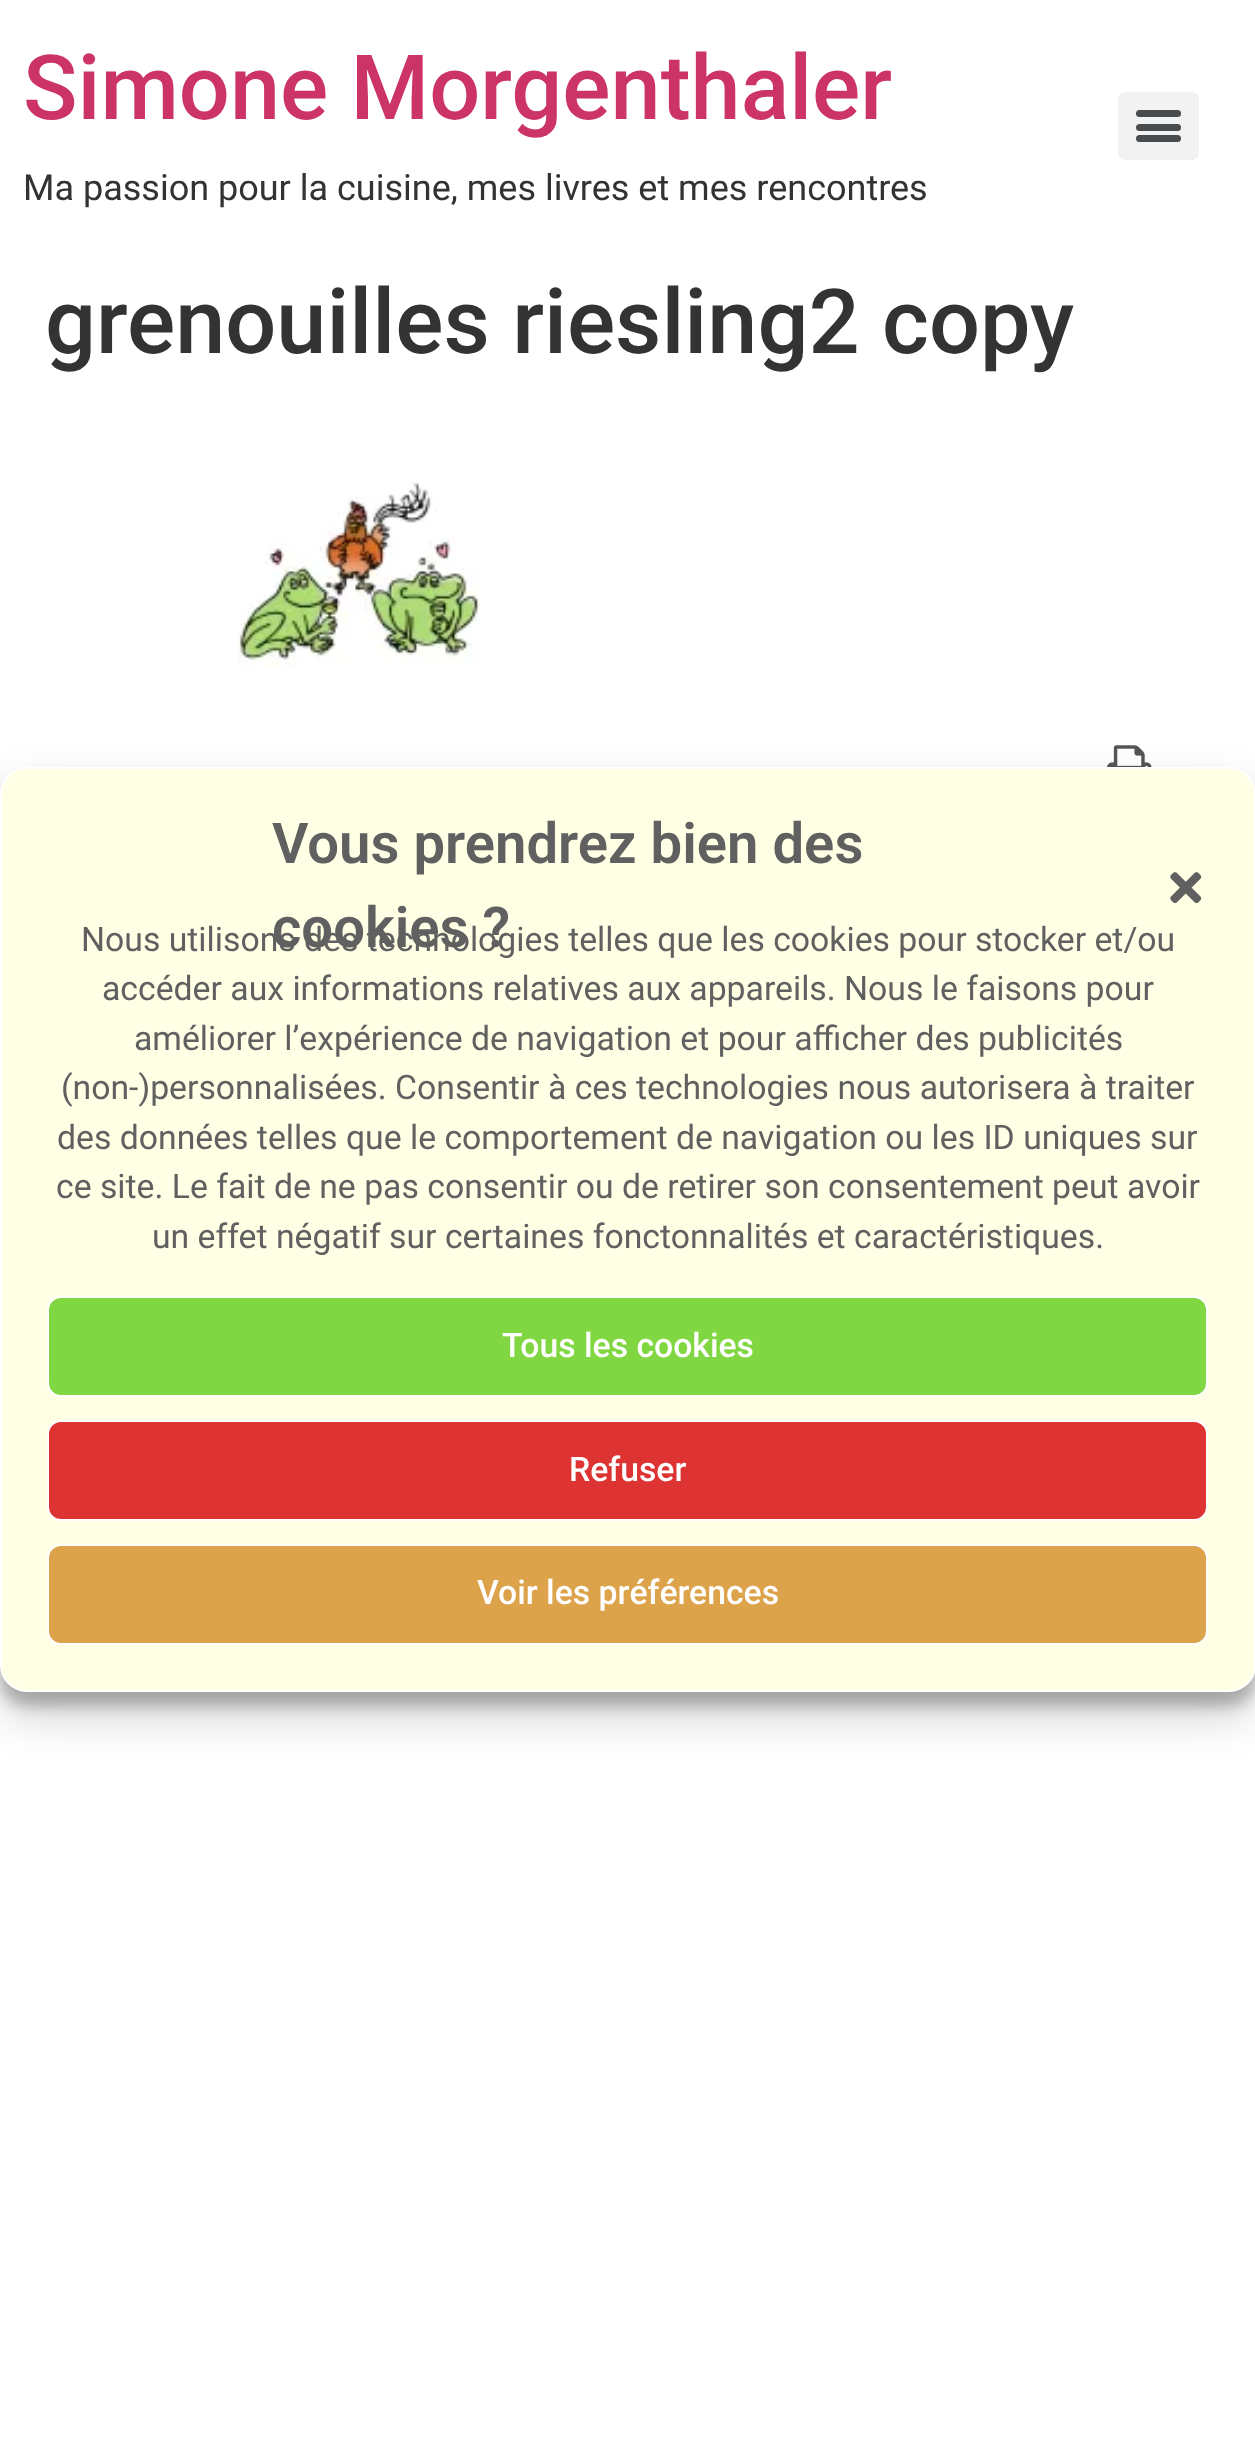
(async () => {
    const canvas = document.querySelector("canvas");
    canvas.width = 1255;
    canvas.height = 2457;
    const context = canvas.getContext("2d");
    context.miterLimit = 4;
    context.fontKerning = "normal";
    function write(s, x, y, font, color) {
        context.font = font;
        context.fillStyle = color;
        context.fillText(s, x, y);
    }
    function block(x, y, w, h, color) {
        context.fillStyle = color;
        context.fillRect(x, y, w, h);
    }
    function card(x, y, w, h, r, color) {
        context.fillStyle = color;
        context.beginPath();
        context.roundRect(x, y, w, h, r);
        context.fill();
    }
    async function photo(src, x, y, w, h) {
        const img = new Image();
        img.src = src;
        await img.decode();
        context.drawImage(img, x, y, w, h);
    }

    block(0, 0, 1255, 2457, "rgb(255, 255, 255)");
    write("Simone Morgenthaler", 23, 119, "500 90px Roboto", "rgb(204, 51, 102)");
    write("Ma passion pour la cuisine, mes livres et mes rencontres", 23, 200, "36px Roboto", "rgb(51, 51, 51)");
    card(1118, 92, 81, 68, 7, "rgb(242, 242, 242)");
    card(1136, 124, 45, 7, 3.5, "rgb(73, 76, 79)");
    card(1136, 110, 45, 7, 3.5, "rgb(73, 76, 79)");
    card(1136, 135, 45, 7, 3.5, "rgb(73, 76, 79)");
    write("grenouilles riesling2 copy", 45, 353, "500 90px Roboto", "rgb(51, 51, 51)");
    await photo("media/1.png", 238, 482, 243, 185);
    await photo("media/2.png", 1107, 745, 45, 22);
    context.fillStyle = "rgba(0, 0, 0, 0.23)";
    context.filter = "blur(7px)";
    context.beginPath();
    context.roundRect(0, 781, 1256, 925, 27);
    context.fill();
    context.filter = "none";
    context.fillStyle = "rgba(0, 0, 0, 0.19)";
    context.filter = "blur(22.5px)";
    context.beginPath();
    context.roundRect(0, 790, 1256, 925, 27);
    context.fill();
    context.filter = "none";
    context.fillStyle = "rgb(255, 255, 229)";
    context.beginPath();
    context.roundRect(1, 768, 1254, 923, 26);
    context.fill();
    context.strokeStyle = "rgb(255, 255, 255)";
    context.lineWidth = 2;
    context.stroke();
    write("Vous prendrez bien des", 272, 863, "600 56.25px Roboto", "rgb(96, 96, 96)");
    write("cookies ?", 272, 947, "600 56.25px Roboto", "rgb(96, 96, 96)");
    await photo("media/3.png", 1170, 872, 32, 32);
    write("Nous utilisons des technologies telles que les cookies pour stocker et/ou", 81, 951, "33.75px Roboto", "rgb(96, 96, 96)");
    write("accéder aux informations relatives aux appareils. Nous le faisons pour", 102, 1000, "33.75px Roboto", "rgb(96, 96, 96)");
    write("améliorer l’expérience de navigation et pour afficher des publicités", 134, 1050, "33.75px Roboto", "rgb(96, 96, 96)");
    write("(non-)personnalisées. Consentir à ces technologies nous autorisera à traiter", 61, 1099, "33.75px Roboto", "rgb(96, 96, 96)");
    write("des données telles que le comportement de navigation ou les ID uniques sur", 57, 1149, "33.75px Roboto", "rgb(96, 96, 96)");
    write("ce site. Le fait de ne pas consentir ou de retirer son consentement peut avoir", 56, 1198, "33.75px Roboto", "rgb(96, 96, 96)");
    write("un effet négatif sur certaines fonctonnalités et caractéristiques.", 152, 1248, "33.75px Roboto", "rgb(96, 96, 96)");
    context.fillStyle = "rgb(129, 215, 66)";
    context.beginPath();
    context.roundRect(48, 1297, 1159, 99, 13);
    context.fill();
    context.stroke();
    write("Tous les cookies", 502, 1357, "500 33.75px Roboto", "rgb(255, 255, 255)");
    context.fillStyle = "rgb(221, 51, 51)";
    context.beginPath();
    context.roundRect(48, 1421, 1159, 99, 13);
    context.fill();
    context.stroke();
    write("Refuser", 569, 1481, "500 33.75px Roboto", "rgb(255, 255, 255)");
    context.fillStyle = "rgb(221, 163, 75)";
    context.beginPath();
    context.roundRect(48, 1545, 1159, 99, 13);
    context.fill();
    context.stroke();
    write("Voir les préférences", 477, 1604, "500 33.75px Roboto", "rgb(255, 255, 255)");
})();
